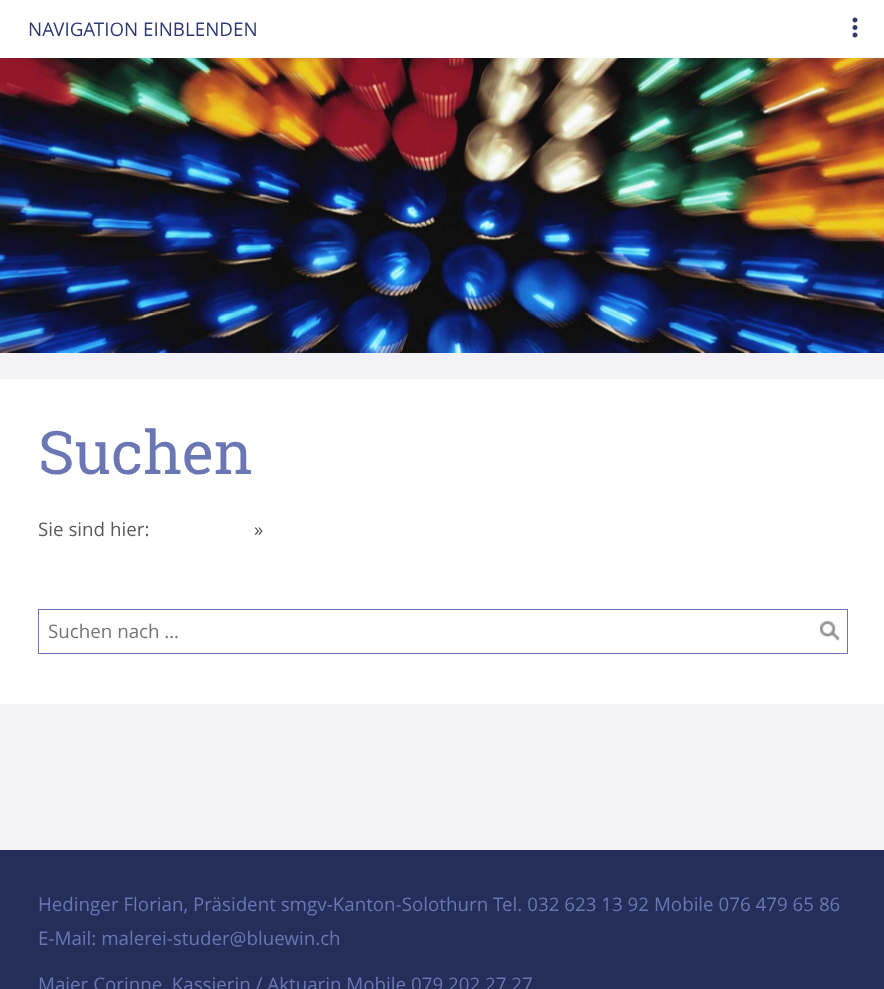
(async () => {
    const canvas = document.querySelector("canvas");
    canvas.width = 884;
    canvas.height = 989;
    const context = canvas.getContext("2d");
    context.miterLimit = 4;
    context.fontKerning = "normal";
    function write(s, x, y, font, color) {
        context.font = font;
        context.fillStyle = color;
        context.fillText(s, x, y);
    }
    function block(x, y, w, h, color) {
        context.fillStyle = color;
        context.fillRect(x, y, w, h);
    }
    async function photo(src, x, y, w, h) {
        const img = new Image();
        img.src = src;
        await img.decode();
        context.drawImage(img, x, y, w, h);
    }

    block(0, 0, 884, 989, "rgb(242, 242, 247)");
    block(0, 0, 884, 58, "rgb(255, 255, 255)");
    await photo("media/1.png", 852, 17, 6, 21);
    write("NAVIGATION EINBLENDEN", 28, 36, "18.75px Open Sans", "rgb(46, 58, 115)");
    await photo("media/2.png", 0, 58, 884, 295);
    block(0, 379, 884, 325, "rgb(255, 255, 255)");
    write("Suchen", 38, 474, "60px Roboto Slab", "rgb(106, 119, 180)");
    write("Sie sind hier:", 38, 536, "18.75px Open Sans", "rgb(90, 90, 90)");
    write("»", 254, 536, "18.75px Open Sans", "rgb(90, 90, 90)");
    context.strokeStyle = "rgb(106, 119, 180)";
    context.strokeRect(38.5, 609.5, 809, 44);
    write("Suchen nach …", 48, 638, "18.75px Open Sans", "rgb(117, 117, 117)");
    await photo("media/3.png", 820, 621, 20, 20);
    block(0, 850, 884, 139, "rgb(36, 46, 89)");
    write("Hedinger Florian, Präsident smgv-Kanton-Solothurn Tel. 032 623 13 92 Mobile 076 479 65 86", 38, 911, "18.75px Open Sans", "rgb(106, 119, 180)");
    write("E-Mail: malerei-studer@bluewin.ch", 38, 945, "18.75px Open Sans", "rgb(106, 119, 180)");
    write("Maier Corinne, Kassierin / Aktuarin Mobile 079 202 27 27", 38, 991, "18.75px Open Sans", "rgb(106, 119, 180)");
})();
